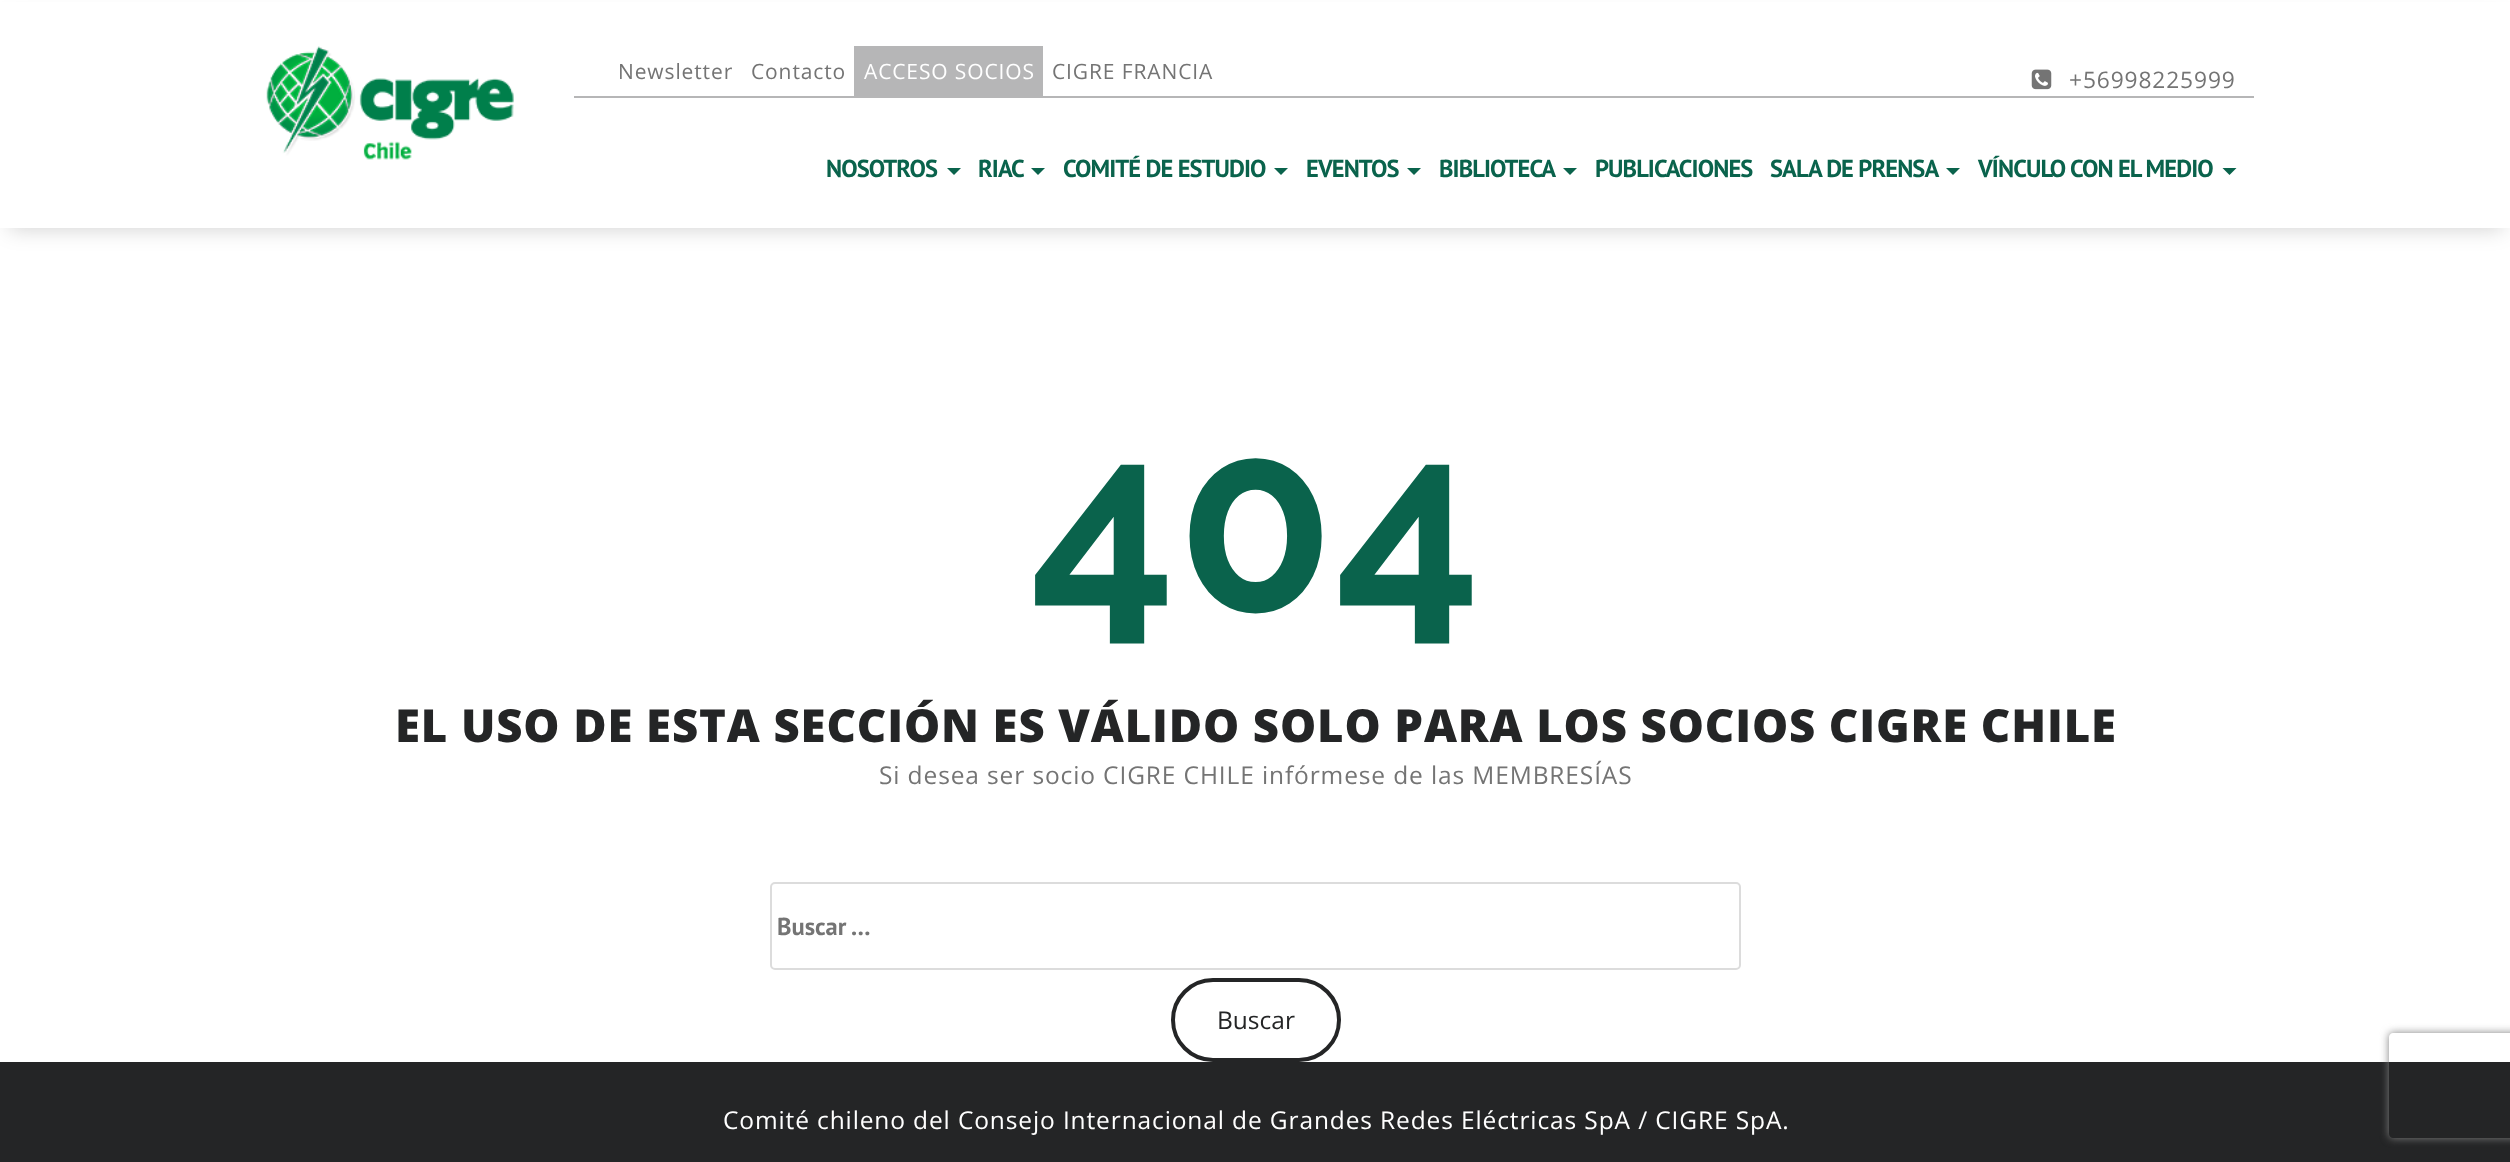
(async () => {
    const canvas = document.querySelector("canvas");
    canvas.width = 2510;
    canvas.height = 1162;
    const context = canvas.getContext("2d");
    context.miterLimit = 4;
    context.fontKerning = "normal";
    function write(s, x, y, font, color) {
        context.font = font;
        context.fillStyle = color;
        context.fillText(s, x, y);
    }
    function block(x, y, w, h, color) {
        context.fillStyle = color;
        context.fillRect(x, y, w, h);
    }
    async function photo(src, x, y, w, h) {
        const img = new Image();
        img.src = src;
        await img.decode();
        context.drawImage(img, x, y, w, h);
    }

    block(0, 0, 2510, 1162, "rgb(255, 255, 255)");
    context.fillStyle = "rgba(0, 0, 0, 0.18)";
    context.filter = "blur(10.5px)";
    context.beginPath();
    context.rect(9, 19, 2494, 210);
    context.fill();
    context.filter = "none";
    block(0, 2, 2510, 226, "rgb(255, 255, 255)");
    await photo("media/1.png", 266, 46, 248, 114);
    block(574, 96, 1680, 2, "rgb(182, 182, 183)");
    context.letterSpacing = "0.88px";
    write("Newsletter", 618, 79, "21px Open Sans", "rgb(116, 116, 116)");
    write("Contacto", 751, 79, "21px Open Sans", "rgb(116, 116, 116)");
    block(854, 46, 189, 50, "rgb(182, 182, 183)");
    write("ACCESO SOCIOS", 864, 79, "21px Open Sans", "rgb(255, 255, 255)");
    write("CIGRE FRANCIA", 1052, 79, "21px Open Sans", "rgb(116, 116, 116)");
    await photo("media/2.png", 2031, 69, 21, 21);
    write("+56998225999", 2069, 88, "22.75px Open Sans", "rgb(116, 116, 116)");
    context.letterSpacing = "-0.9px";
    write("NOSOTROS", 826, 177, "bold 24.5px PT Sans", "rgb(10, 99, 76)");
    context.beginPath();
    context.moveTo(947, 168);
    context.lineTo(961, 168);
    context.lineTo(954, 175);
    context.closePath();
    context.fill();
    write("RIAC", 978, 177, "bold 24.5px PT Sans", "rgb(10, 99, 76)");
    context.beginPath();
    context.moveTo(1031, 168);
    context.lineTo(1045, 168);
    context.lineTo(1038, 175);
    context.closePath();
    context.fill();
    write("COMITÉ DE ESTUDIO", 1063, 177, "bold 24.5px PT Sans", "rgb(10, 99, 76)");
    context.beginPath();
    context.moveTo(1274, 168);
    context.lineTo(1288, 168);
    context.lineTo(1281, 175);
    context.closePath();
    context.fill();
    write("EVENTOS", 1306, 177, "bold 24.5px PT Sans", "rgb(10, 99, 76)");
    context.beginPath();
    context.moveTo(1407, 168);
    context.lineTo(1421, 168);
    context.lineTo(1414, 175);
    context.closePath();
    context.fill();
    write("BIBLIOTECA", 1439, 177, "bold 24.5px PT Sans", "rgb(10, 99, 76)");
    context.beginPath();
    context.moveTo(1563, 168);
    context.lineTo(1577, 168);
    context.lineTo(1570, 175);
    context.closePath();
    context.fill();
    write("PUBLICACIONES", 1595, 177, "bold 24.5px PT Sans", "rgb(10, 99, 76)");
    write("SALA DE PRENSA", 1770, 177, "bold 24.5px PT Sans", "rgb(10, 99, 76)");
    context.beginPath();
    context.moveTo(1946, 168);
    context.lineTo(1960, 168);
    context.lineTo(1953, 175);
    context.closePath();
    context.fill();
    write("VÍNCULO CON EL MEDIO", 1978, 177, "bold 24.5px PT Sans", "rgb(10, 99, 76)");
    context.beginPath();
    context.moveTo(2222.5, 168);
    context.lineTo(2236.5, 168);
    context.lineTo(2229.5, 175);
    context.closePath();
    context.fill();
    context.letterSpacing = "0.88px";
    write("404", 1030, 611, "bold 256px Raleway", "rgb(10, 99, 76)");
    write("EL USO DE ESTA SECCIÓN ES VÁLIDO SOLO PARA LOS SOCIOS CIGRE CHILE", 395, 742, "800 45.5px Open Sans", "rgb(36, 37, 38)");
    write("Si desea ser socio CIGRE CHILE infórmese de las MEMBRESÍAS", 879, 784, "24.5px Open Sans", "rgb(116, 116, 116)");
    context.beginPath();
    context.roundRect(771, 883, 969, 86, 4);
    context.strokeStyle = "rgb(220, 220, 220)";
    context.lineWidth = 2;
    context.stroke();
    context.letterSpacing = "0px";
    write("Buscar …", 777, 935, "bold 24.5px PT Sans", "rgb(116, 116, 116)");
    context.beginPath();
    context.roundRect(1173, 980, 166, 80, 40);
    context.strokeStyle = "rgb(36, 37, 38)";
    context.lineWidth = 4;
    context.stroke();
    write("Buscar", 1217, 1029, "24.5px Open Sans", "rgb(36, 37, 38)");
    block(0, 1062, 2510, 100, "rgb(36, 37, 38)");
    context.letterSpacing = "0.88px";
    write("Comité chileno del Consejo Internacional de Grandes Redes Eléctricas SpA / CIGRE SpA.", 723, 1129, "24.5px Open Sans", "rgb(255, 255, 255)");
    context.save();
    context.beginPath();
    context.moveTo(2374, 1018);
    context.lineTo(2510, 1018);
    context.lineTo(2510, 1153);
    context.lineTo(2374, 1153);
    context.closePath();
    context.moveTo(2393, 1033);
    context.lineTo(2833, 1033);
    context.bezierCurveTo(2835, 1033, 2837, 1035, 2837, 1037);
    context.lineTo(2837, 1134);
    context.bezierCurveTo(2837, 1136, 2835, 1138, 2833, 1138);
    context.lineTo(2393, 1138);
    context.bezierCurveTo(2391, 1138, 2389, 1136, 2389, 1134);
    context.lineTo(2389, 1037);
    context.bezierCurveTo(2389, 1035, 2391, 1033, 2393, 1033);
    context.closePath();
    context.clip("evenodd");
    context.fillStyle = "rgb(128, 128, 128)";
    context.filter = "blur(4.5px)";
    context.beginPath();
    context.roundRect(2389, 1033, 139, 105, 4);
    context.fill();
    context.filter = "none";
    context.restore();
})();
